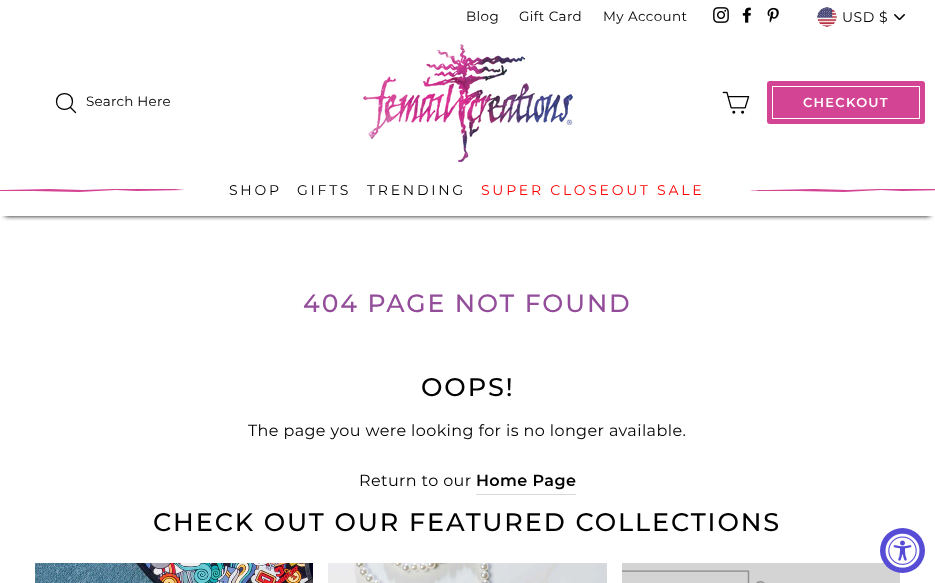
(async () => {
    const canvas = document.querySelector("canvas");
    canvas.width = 935;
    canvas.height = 583;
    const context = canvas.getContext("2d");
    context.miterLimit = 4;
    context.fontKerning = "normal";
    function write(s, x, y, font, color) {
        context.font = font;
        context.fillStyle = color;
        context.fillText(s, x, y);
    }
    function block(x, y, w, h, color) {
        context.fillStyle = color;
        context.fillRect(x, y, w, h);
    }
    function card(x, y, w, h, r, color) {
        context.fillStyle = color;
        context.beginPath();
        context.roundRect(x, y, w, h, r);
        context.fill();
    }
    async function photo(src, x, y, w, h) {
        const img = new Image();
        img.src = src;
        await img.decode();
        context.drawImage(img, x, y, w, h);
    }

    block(0, 0, 935, 583, "rgb(255, 255, 255)");
    context.save();
    context.beginPath();
    context.rect(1, 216, 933, 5);
    context.clip();
    context.fillStyle = "rgb(0, 0, 0)";
    context.filter = "blur(2.5px)";
    context.beginPath();
    context.rect(5, 10, 925, 206);
    context.fill();
    context.filter = "none";
    context.restore();
    context.letterSpacing = "0.4px";
    write("Blog", 466, 21, "100 13.5px Montserrat", "rgb(0, 0, 0)");
    write("Gift Card", 519, 21, "100 13.5px Montserrat", "rgb(0, 0, 0)");
    write("My Account", 603, 21, "100 13.5px Montserrat", "rgb(0, 0, 0)");
    await photo("media/1.png", 713, 7, 16, 16);
    await photo("media/2.png", 742, 7, 9, 16);
    await photo("media/3.png", 767, 7, 12, 16);
    await photo("media/4.png", 894, 14, 11, 6);
    await photo("media/5.png", 817, 7, 20, 20);
    context.letterSpacing = "0.5px";
    write("USD $", 842, 22, "100 14px Montserrat", "rgb(0, 0, 0)");
    context.beginPath();
    context.moveTo(72.5, 101.5);
    context.bezierCurveTo(72.5, 112, 56.5, 112, 56.5, 101.5);
    context.bezierCurveTo(56.5, 91, 72.5, 91, 72.5, 101.5);
    context.closePath();
    context.moveTo(75.5, 112.5);
    context.lineTo(70.5, 107.5);
    context.strokeStyle = "rgb(0, 0, 0)";
    context.lineWidth = 1.3;
    context.lineCap = "round";
    context.lineJoin = "round";
    context.stroke();
    context.letterSpacing = "0.25px";
    write("Search Here", 86, 106, "100 13.5px Montserrat", "rgb(0, 0, 0)");
    await photo("media/6.png", 363, 44, 210, 118);
    await photo("media/7.png", 722, 91, 28, 23);
    card(767, 81, 158, 43, 3, "rgb(212, 68, 148)");
    context.strokeStyle = "rgb(255, 255, 255)";
    context.lineWidth = 1;
    context.lineJoin = "miter";
    context.strokeRect(772.5, 86.5, 147, 32);
    context.letterSpacing = "1.25px";
    write("CHECKOUT", 803, 107, "600 13px Montserrat", "rgb(255, 255, 255)");
    context.fillStyle = "rgb(212, 68, 148)";
    context.beginPath();
    context.moveTo(113, 189);
    context.lineTo(83, 190);
    context.lineTo(49, 189);
    context.bezierCurveTo(34, 189, 19, 190, 3, 190);
    context.lineTo(-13, 190);
    context.lineTo(-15, 190);
    context.bezierCurveTo(-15, 191, 2, 191, 4, 191);
    context.lineTo(33, 191);
    context.lineTo(79, 192);
    context.lineTo(116, 190);
    context.lineTo(137, 191);
    context.lineTo(184, 190);
    context.lineTo(185, 190);
    context.lineTo(175, 189);
    context.lineTo(130, 189);
    context.closePath();
    context.fill("evenodd");
    context.letterSpacing = "2.75px";
    write("SHOP", 229, 195, "100 14px Montserrat", "rgb(0, 0, 0)");
    write("GIFTS", 297, 195, "100 14px Montserrat", "rgb(0, 0, 0)");
    write("TRENDING", 367, 195, "100 14px Montserrat", "rgb(0, 0, 0)");
    write("SUPER CLOSEOUT SALE", 481, 195, "100 14px Montserrat", "rgb(255, 0, 0)");
    context.fillStyle = "rgb(212, 68, 148)";
    context.beginPath();
    context.moveTo(878, 189);
    context.lineTo(848, 190);
    context.lineTo(814, 189);
    context.bezierCurveTo(799, 189, 784, 190, 768, 190);
    context.lineTo(752, 190);
    context.lineTo(750, 190);
    context.bezierCurveTo(750, 191, 767, 191, 769, 191);
    context.lineTo(798, 191);
    context.lineTo(844, 192);
    context.lineTo(881, 190);
    context.lineTo(902, 191);
    context.lineTo(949, 190);
    context.lineTo(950, 190);
    context.lineTo(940, 189);
    context.lineTo(895, 189);
    context.closePath();
    context.fill("evenodd");
    context.letterSpacing = "1.9px";
    write("404 PAGE NOT FOUND", 303, 312, "500 25px Montserrat", "rgb(147, 77, 154)");
    write("OOPS!", 421, 396, "500 25.5px Montserrat", "rgb(0, 0, 0)");
    context.letterSpacing = "0.4px";
    write("The page you were looking for is no longer available.", 248, 436, "100 16px Montserrat", "rgb(0, 0, 0)");
    write("Return to our", 359, 486, "100 16px Montserrat", "rgb(0, 0, 0)");
    block(476, 494, 100, 1, "rgb(217, 217, 217)");
    write("Home Page", 476, 486, "600 16px Montserrat", "rgb(0, 0, 0)");
    context.letterSpacing = "1.9px";
    write("CHECK OUT OUR FEATURED COLLECTIONS", 153, 531, "500 25.5px Montserrat", "rgb(0, 0, 0)");
    await photo("media/8.png", 35, 563, 278, 20);
    await photo("media/9.png", 328, 563, 279, 20);
    block(622, 563, 278, 20, "rgb(212, 212, 212)");
    await photo("media/10.png", 622, 570, 143, 13);
    context.fillStyle = "rgb(87, 76, 213)";
    context.beginPath();
    context.arc(902.5, 550.5, 22.5, 0, Math.PI * 2);
    context.fill();
    await photo("media/11.png", 885, 533, 35, 35);
})();
